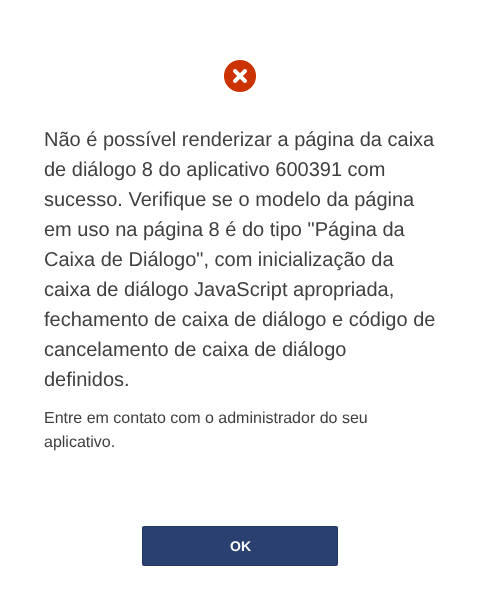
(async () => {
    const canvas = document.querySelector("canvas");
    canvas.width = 480;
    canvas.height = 598;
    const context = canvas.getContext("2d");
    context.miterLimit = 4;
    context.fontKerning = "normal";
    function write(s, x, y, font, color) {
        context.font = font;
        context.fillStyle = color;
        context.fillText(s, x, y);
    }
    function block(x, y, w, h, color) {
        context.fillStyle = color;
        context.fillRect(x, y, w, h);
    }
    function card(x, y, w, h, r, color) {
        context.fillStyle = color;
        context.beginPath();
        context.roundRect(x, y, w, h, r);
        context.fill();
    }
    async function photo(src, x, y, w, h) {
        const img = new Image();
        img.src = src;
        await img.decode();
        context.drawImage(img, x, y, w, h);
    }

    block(0, 0, 480, 598, "rgb(255, 255, 255)");
    await photo("media/1.png", 224, 60, 32, 32);
    write("Não é possível renderizar a página da caixa", 44, 146, "20px Liberation Sans", "rgb(64, 64, 64)");
    write("de diálogo 8 do aplicativo 600391 com", 44, 176, "20px Liberation Sans", "rgb(64, 64, 64)");
    write("sucesso. Verifique se o modelo da página", 44, 206, "20px Liberation Sans", "rgb(64, 64, 64)");
    write("em uso na página 8 é do tipo \"Página da", 44, 236, "20px Liberation Sans", "rgb(64, 64, 64)");
    write("Caixa de Diálogo\", com inicialização da", 44, 266, "20px Liberation Sans", "rgb(64, 64, 64)");
    write("caixa de diálogo JavaScript apropriada,", 44, 296, "20px Liberation Sans", "rgb(64, 64, 64)");
    write("fechamento de caixa de diálogo e código de", 44, 326, "20px Liberation Sans", "rgb(64, 64, 64)");
    write("cancelamento de caixa de diálogo", 44, 356, "20px Liberation Sans", "rgb(64, 64, 64)");
    write("definidos.", 44, 386, "20px Liberation Sans", "rgb(64, 64, 64)");
    write("Entre em contato com o administrador do seu", 44, 423, "16px Liberation Sans", "rgb(64, 64, 64)");
    write("aplicativo.", 44, 447, "16px Liberation Sans", "rgb(64, 64, 64)");
    card(142, 526, 196, 40, 2, "rgb(42, 64, 112)");
    context.beginPath();
    context.roundRect(142.5, 526.5, 195, 39, 1.5);
    context.strokeStyle = "rgba(0, 0, 0, 0.12)";
    context.stroke();
    write("OK", 230, 551, "bold 14px Liberation Sans", "rgb(255, 255, 255)");
})();
